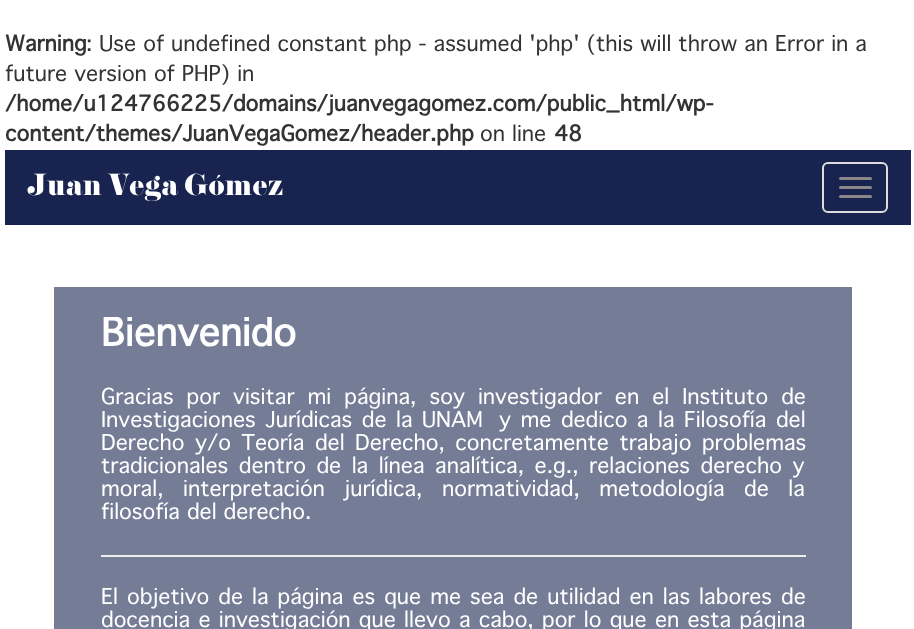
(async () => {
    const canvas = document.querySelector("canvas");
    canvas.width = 914;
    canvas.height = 629;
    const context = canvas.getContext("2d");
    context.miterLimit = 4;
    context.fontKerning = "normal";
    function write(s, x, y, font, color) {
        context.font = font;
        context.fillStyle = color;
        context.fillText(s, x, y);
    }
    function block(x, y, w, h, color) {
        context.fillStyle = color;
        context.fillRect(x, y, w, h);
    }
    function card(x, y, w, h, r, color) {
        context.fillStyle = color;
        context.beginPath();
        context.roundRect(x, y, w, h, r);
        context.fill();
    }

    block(0, 0, 914, 629, "rgb(255, 255, 255)");
    write("Warning", 5, 51, "bold 21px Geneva", "rgb(51, 51, 51)");
    write(": Use of undefined constant php - assumed 'php' (this will throw an Error in a", 86, 51, "21px Geneva", "rgb(51, 51, 51)");
    write("future version of PHP) in", 5, 81, "21px Geneva", "rgb(51, 51, 51)");
    write("/home/u124766225/domains/juanvegagomez.com/public_html/wp-", 5, 111, "bold 21px Geneva", "rgb(51, 51, 51)");
    write("content/themes/JuanVegaGomez/header.php", 5, 141, "bold 21px Geneva", "rgb(51, 51, 51)");
    write("on line", 480, 141, "21px Geneva", "rgb(51, 51, 51)");
    write("48", 554, 141, "bold 21px Geneva", "rgb(51, 51, 51)");
    block(5, 150, 906, 75, "rgb(24, 36, 79)");
    context.wordSpacing = "1px";
    write("Juan Vega Gómez", 27, 195, "27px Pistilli", "rgb(255, 255, 255)");
    context.beginPath();
    context.roundRect(823, 163, 64, 49, 5);
    context.strokeStyle = "rgb(221, 221, 221)";
    context.lineWidth = 2;
    context.stroke();
    card(839, 177, 33, 3, 1.5, "rgb(136, 136, 136)");
    card(839, 186, 33, 3, 1.5, "rgb(136, 136, 136)");
    card(839, 195, 33, 3, 1.5, "rgb(136, 136, 136)");
    block(54, 287, 798, 342, "rgb(117, 124, 150)");
    context.save();
    context.beginPath();
    context.rect(62, 317, 783, 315);
    context.clip();
    context.wordSpacing = "0px";
    write("Bienvenido", 101, 346, "bold 37.5px Geneva", "rgb(255, 255, 255)");
    context.restore();
    context.wordSpacing = "6px";
    write("Gracias por visitar mi página, soy investigador en el Instituto de", 101, 404, "21px Geneva", "rgb(255, 255, 255)");
    context.wordSpacing = "2.5px";
    write("Investigaciones Jurídicas de la UNAM", 101, 427, "21px Geneva", "rgb(255, 255, 255)");
    write("y me dedico a la Filosofía del", 499, 427, "21px Geneva", "rgb(255, 255, 255)");
    context.wordSpacing = "3.5px";
    write("Derecho y/o Teoría del Derecho, concretamente trabajo problemas", 101, 450, "21px Geneva", "rgb(255, 255, 255)");
    write("tradicionales dentro de la línea analítica, e.g., relaciones derecho y", 101, 473, "21px Geneva", "rgb(255, 255, 255)");
    context.wordSpacing = "12.5px";
    write("moral, interpretación jurídica, normatividad, metodología de la", 101, 496, "21px Geneva", "rgb(255, 255, 255)");
    context.wordSpacing = "0px";
    write("filosofía del derecho.", 101, 519, "21px Geneva", "rgb(255, 255, 255)");
    block(101, 555, 705, 2, "rgb(238, 238, 238)");
    context.wordSpacing = "2px";
    write("El objetivo de la página es que me sea de utilidad en las labores de", 101, 604, "21px Geneva", "rgb(255, 255, 255)");
    context.wordSpacing = "1.25px";
    write("docencia e investigación que llevo a cabo, por lo que en esta página", 101, 627, "21px Geneva", "rgb(255, 255, 255)");
})();
